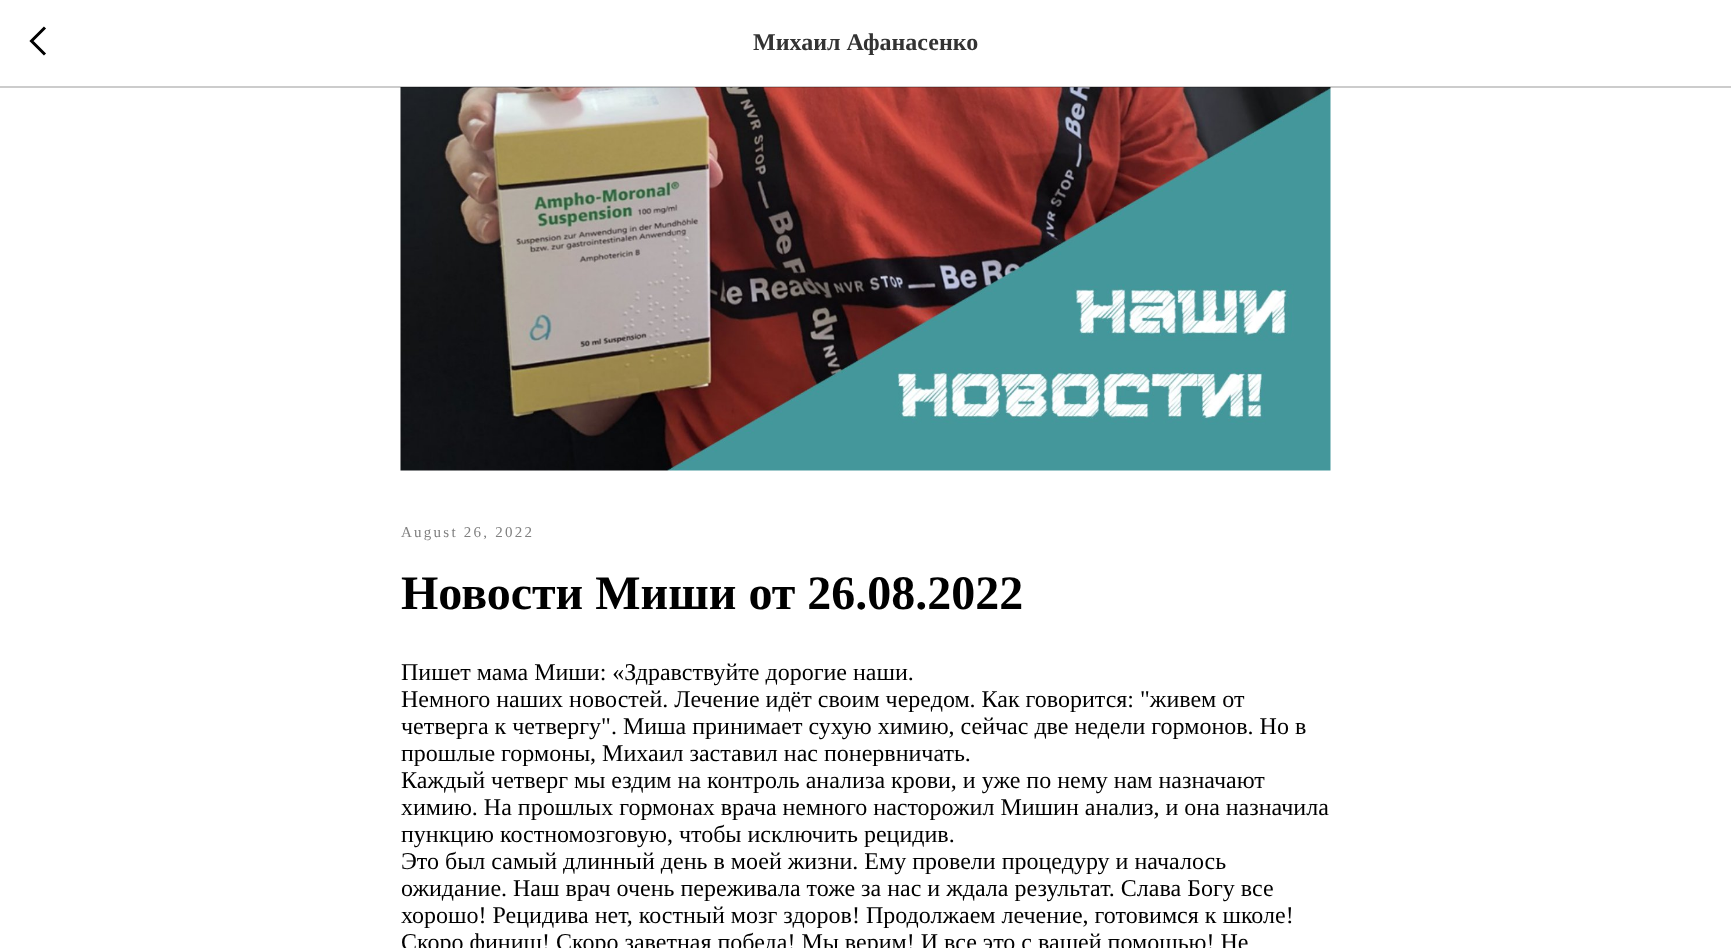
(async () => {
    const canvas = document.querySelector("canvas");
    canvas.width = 1731;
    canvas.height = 948;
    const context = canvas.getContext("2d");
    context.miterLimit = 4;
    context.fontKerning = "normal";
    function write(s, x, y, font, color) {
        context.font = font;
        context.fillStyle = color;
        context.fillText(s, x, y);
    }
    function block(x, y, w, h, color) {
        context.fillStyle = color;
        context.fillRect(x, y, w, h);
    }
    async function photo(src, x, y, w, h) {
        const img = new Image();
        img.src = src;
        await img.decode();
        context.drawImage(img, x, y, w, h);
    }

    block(0, 0, 1731, 948, "rgb(255, 255, 255)");
    await photo("media/1.png", 400, 87, 931, 384);
    block(0, 86, 1731, 2, "rgba(0, 0, 0, 0.2)");
    context.beginPath();
    context.moveTo(45, 54.5);
    context.lineTo(31.5, 41);
    context.lineTo(45, 27.5);
    context.strokeStyle = "rgb(0, 0, 0)";
    context.lineWidth = 3;
    context.stroke();
    write("Михаил Афанасенко", 753, 50, "bold 24px Liberation Serif", "rgb(51, 51, 51)");
    context.letterSpacing = "2.25px";
    write("August 26, 2022", 401, 537, "15px Liberation Serif", "rgb(128, 128, 128)");
    context.letterSpacing = "0px";
    write("Новости Миши от 26.08.2022", 401, 609, "bold 48px Liberation Serif", "rgb(0, 0, 0)");
    write("Пишет мама Миши: «Здравствуйте дорогие наши.", 401, 680, "24px Liberation Serif", "rgb(0, 0, 0)");
    write("Немного наших новостей. Лечение идёт своим чередом. Как говорится: \"живем от", 401, 707, "24px Liberation Serif", "rgb(0, 0, 0)");
    write("четверга к четвергу\". Миша принимает сухую химию, сейчас две недели гормонов. Но в", 401, 734, "24px Liberation Serif", "rgb(0, 0, 0)");
    write("прошлые гормоны, Михаил заставил нас понервничать.", 401, 761, "24px Liberation Serif", "rgb(0, 0, 0)");
    write("Каждый четверг мы ездим на контроль анализа крови, и уже по нему нам назначают", 401, 788, "24px Liberation Serif", "rgb(0, 0, 0)");
    write("химию. На прошлых гормонах врача немного насторожил Мишин анализ, и она назначила", 401, 815, "24px Liberation Serif", "rgb(0, 0, 0)");
    write("пункцию костномозговую, чтобы исключить рецидив.", 401, 842, "24px Liberation Serif", "rgb(0, 0, 0)");
    write("Это был самый длинный день в моей жизни. Ему провели процедуру и началось", 401, 869, "24px Liberation Serif", "rgb(0, 0, 0)");
    write("ожидание. Наш врач очень переживала тоже за нас и ждала результат. Слава Богу все", 401, 896, "24px Liberation Serif", "rgb(0, 0, 0)");
    write("хорошо! Рецидива нет, костный мозг здоров! Продолжаем лечение, готовимся к школе!", 401, 923, "24px Liberation Serif", "rgb(0, 0, 0)");
    write("Скоро финиш! Скоро заветная победа! Мы верим! И все это с вашей помощью! Не", 401, 950, "24px Liberation Serif", "rgb(0, 0, 0)");
})();
